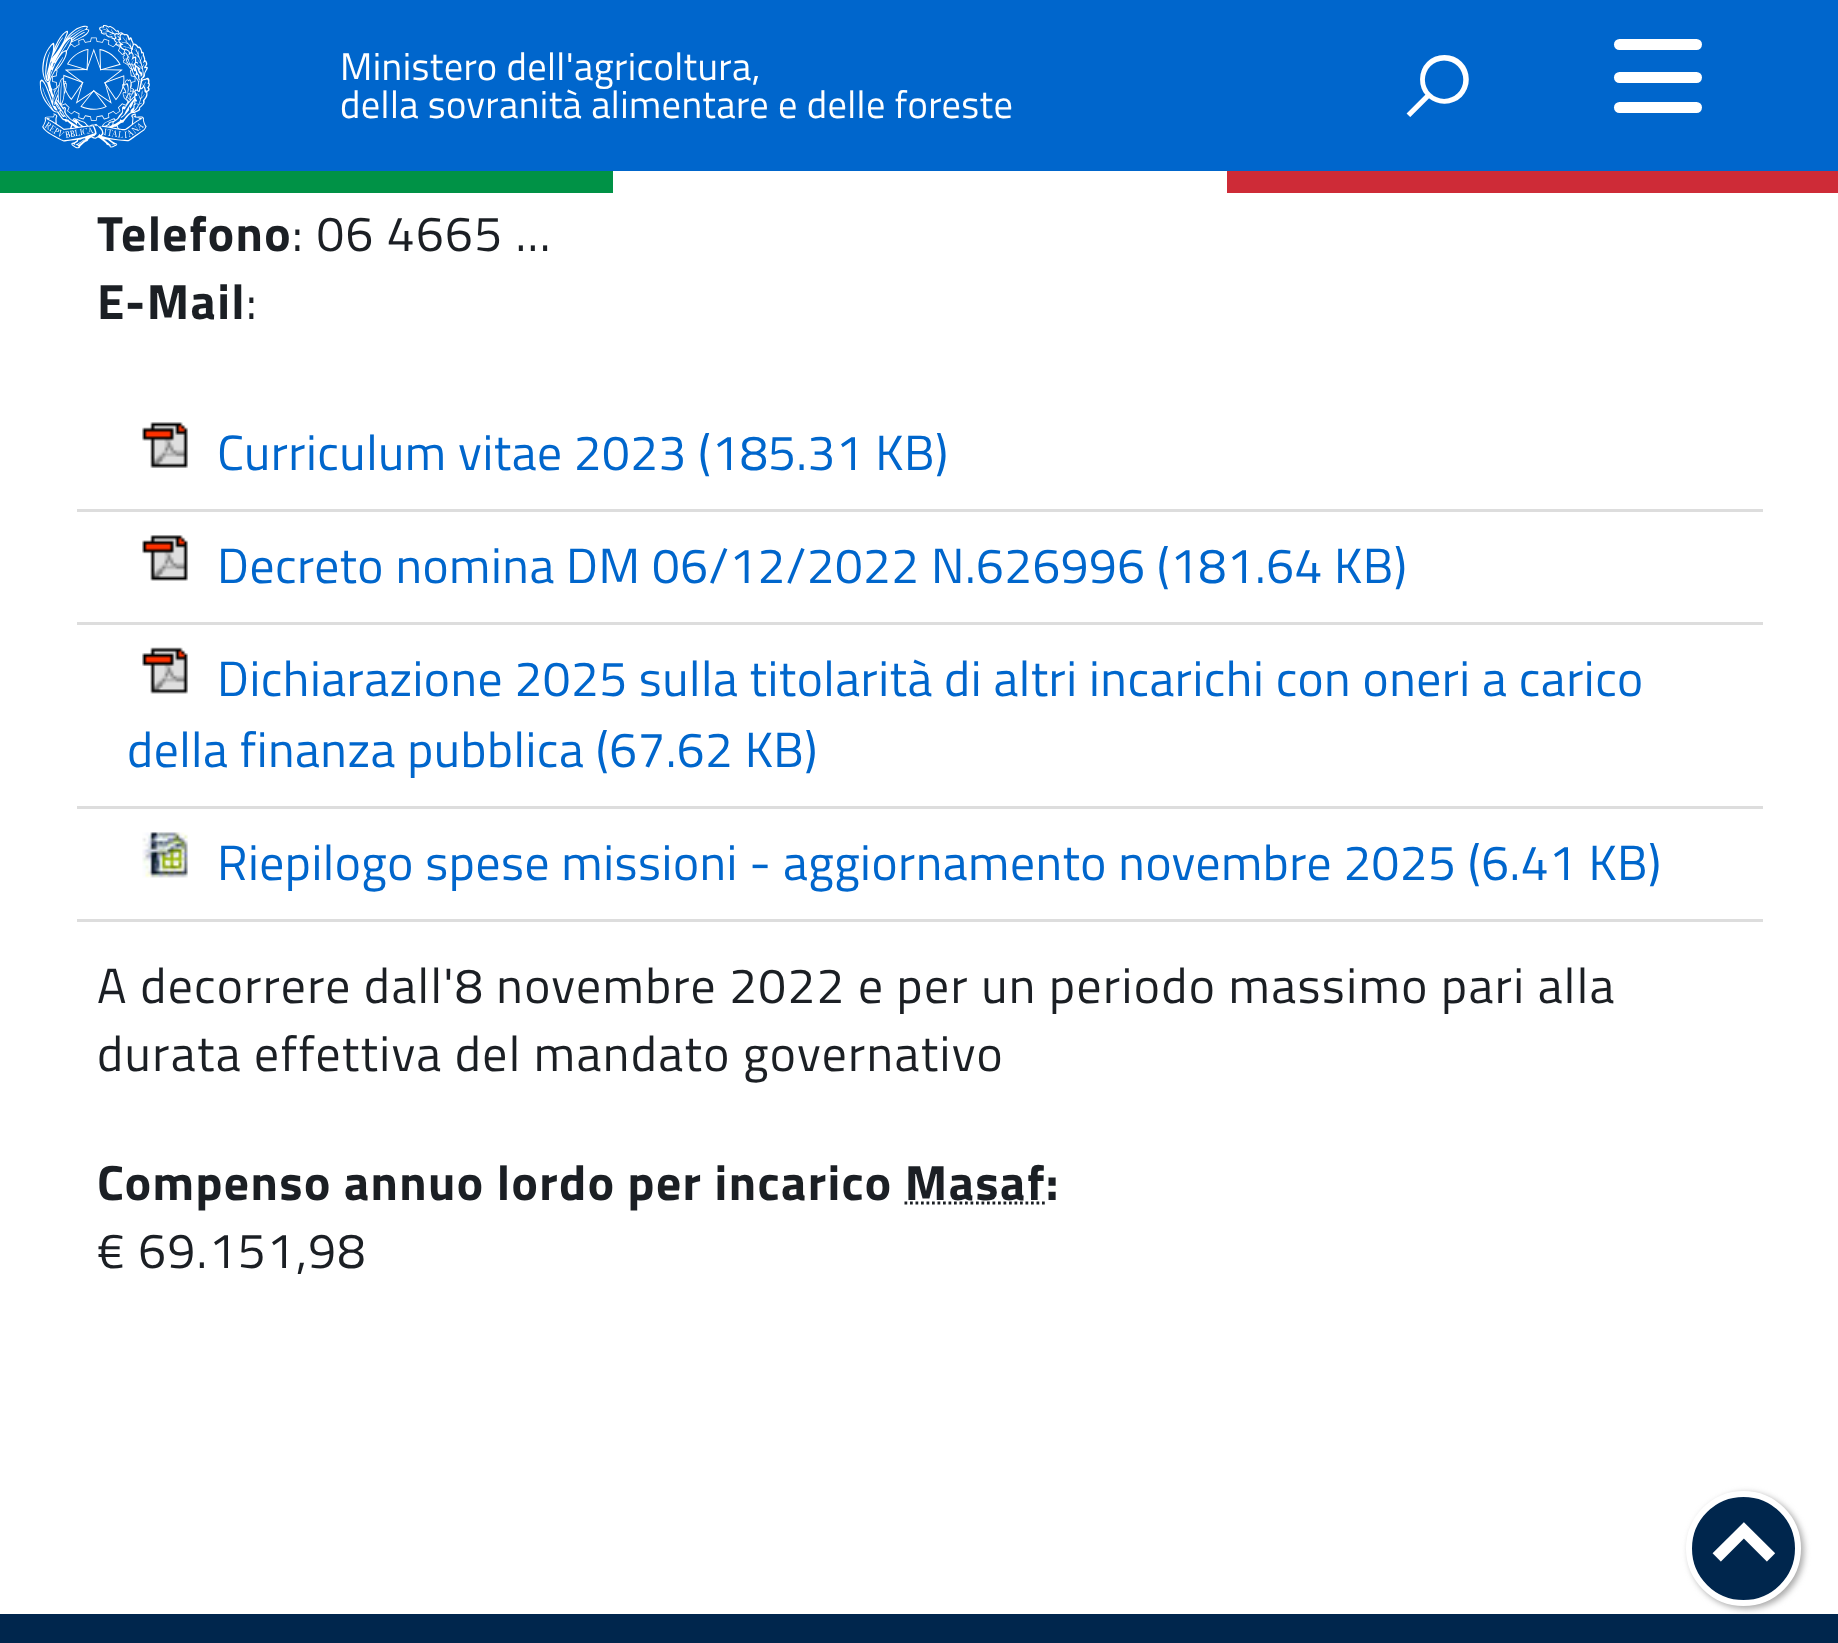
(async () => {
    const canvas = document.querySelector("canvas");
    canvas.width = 1838;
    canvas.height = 1643;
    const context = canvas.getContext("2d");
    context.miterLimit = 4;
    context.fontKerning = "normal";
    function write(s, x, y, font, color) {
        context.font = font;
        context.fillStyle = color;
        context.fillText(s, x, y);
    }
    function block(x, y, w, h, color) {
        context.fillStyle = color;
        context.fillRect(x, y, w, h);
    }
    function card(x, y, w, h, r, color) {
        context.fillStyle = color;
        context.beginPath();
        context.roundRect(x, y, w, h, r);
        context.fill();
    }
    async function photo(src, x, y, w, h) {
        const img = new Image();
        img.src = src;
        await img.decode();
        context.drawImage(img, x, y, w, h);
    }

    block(0, 0, 1838, 1643, "rgb(255, 255, 255)");
    block(0, 0, 1838, 171, "rgb(0, 102, 204)");
    await photo("media/1.png", 39, 25, 111, 124);
    context.letterSpacing = "0.4px";
    write("Ministero dell'agricoltura,", 340, 80, "38.5px Titillium Web", "rgb(255, 255, 255)");
    write("della sovranità alimentare e delle foreste", 340, 118, "38.5px Titillium Web", "rgb(255, 255, 255)");
    context.letterSpacing = "0px";
    write("🔍", 1407, 113, "bold 60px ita", "rgb(255, 255, 255)");
    card(1614, 72, 88, 11, 5.5, "rgb(255, 255, 255)");
    card(1614, 39, 88, 11, 5.5, "rgb(255, 255, 255)");
    card(1614, 102, 88, 11, 5.5, "rgb(255, 255, 255)");
    block(0, 171, 613, 22, "rgb(0, 146, 70)");
    block(1227, 171, 611, 22, "rgb(206, 43, 55)");
    context.letterSpacing = "1.38px";
    write("Telefono", 97, 251, "bold 49.5px Titillium Web", "rgb(27, 31, 36)");
    write(": 06 4665 ...", 292, 251, "49.5px Titillium Web", "rgb(27, 31, 36)");
    write("E-Mail", 97, 319, "bold 49.5px Titillium Web", "rgb(27, 31, 36)");
    write(":", 246, 319, "49.5px Titillium Web", "rgb(27, 31, 36)");
    block(77, 509, 1686, 3, "rgb(221, 221, 221)");
    await photo("media/2.png", 142, 422, 46, 46);
    context.letterSpacing = "0.5px";
    write("Curriculum vitae 2023 (185.31 KB)", 217, 470, "49.5px Titillium Web", "rgb(0, 102, 204)");
    block(77, 622, 1686, 3, "rgb(221, 221, 221)");
    await photo("media/3.png", 142, 535, 46, 46);
    write("Decreto nomina DM 06/12/2022 N.626996 (181.64 KB)", 217, 583, "49.5px Titillium Web", "rgb(0, 102, 204)");
    block(77, 806, 1686, 3, "rgb(221, 221, 221)");
    await photo("media/4.png", 142, 647, 46, 47);
    write("Dichiarazione 2025 sulla titolarità di altri incarichi con oneri a carico", 217, 696, "49.5px Titillium Web", "rgb(0, 102, 204)");
    write("della finanza pubblica (67.62 KB)", 127, 767, "49.5px Titillium Web", "rgb(0, 102, 204)");
    block(77, 919, 1686, 3, "rgb(221, 221, 221)");
    await photo("media/5.png", 142, 832, 46, 46);
    write("Riepilogo spese missioni - aggiornamento novembre 2025 (6.41 KB)", 217, 880, "49.5px Titillium Web", "rgb(0, 102, 204)");
    context.letterSpacing = "1.38px";
    write("A decorrere dall'8 novembre 2022 e per un periodo massimo pari alla", 97, 1003, "49.5px Titillium Web", "rgb(27, 31, 36)");
    write("durata effettiva del mandato governativo", 97, 1071, "49.5px Titillium Web", "rgb(27, 31, 36)");
    write("Compenso annuo lordo per incarico Masaf:", 97, 1200, "bold 49.5px Titillium Web", "rgb(27, 31, 36)");
    context.beginPath();
    context.moveTo(904.5, 1203);
    context.lineTo(1045.5, 1203);
    context.strokeStyle = "rgb(27, 31, 36)";
    context.lineWidth = 2.8;
    context.setLineDash([2.75, 2.75]);
    context.stroke();
    write("€ 69.151,98", 97, 1268, "49.5px Titillium Web", "rgb(27, 31, 36)");
    block(0, 1614, 1838, 29, "rgb(0, 38, 77)");
    context.fillStyle = "rgb(170, 170, 170)";
    context.filter = "blur(3px)";
    context.beginPath();
    context.roundRect(1689, 1493, 115, 116, 57.5);
    context.fill();
    context.filter = "none";
    context.fillStyle = "rgb(0, 38, 77)";
    context.beginPath();
    context.arc(1743.5, 1548.5, 54.5, 0, Math.PI * 2);
    context.fill();
    context.strokeStyle = "rgb(255, 255, 255)";
    context.lineWidth = 6;
    context.setLineDash([]);
    context.stroke();
    context.letterSpacing = "0px";
    write("⏷", 1713, 1569, "bold 60px ita", "rgb(255, 255, 255)");
})();
